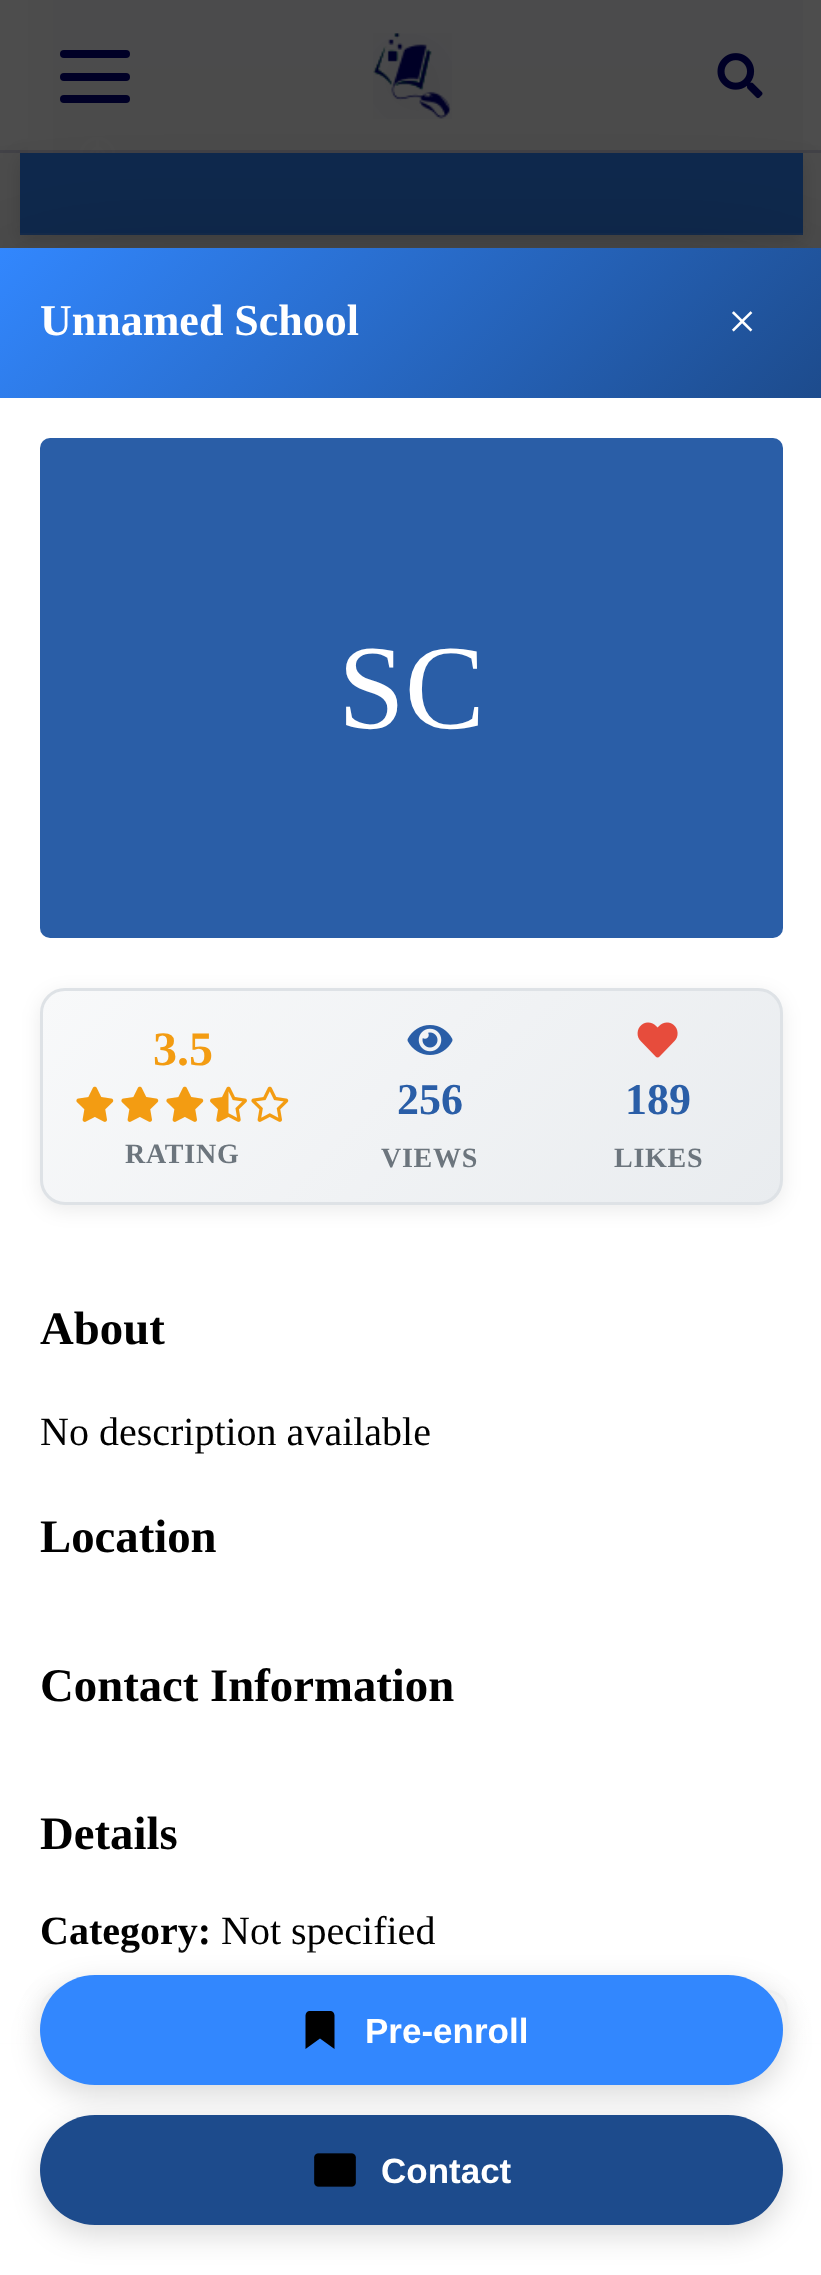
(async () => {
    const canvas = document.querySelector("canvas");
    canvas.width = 821;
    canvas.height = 2275;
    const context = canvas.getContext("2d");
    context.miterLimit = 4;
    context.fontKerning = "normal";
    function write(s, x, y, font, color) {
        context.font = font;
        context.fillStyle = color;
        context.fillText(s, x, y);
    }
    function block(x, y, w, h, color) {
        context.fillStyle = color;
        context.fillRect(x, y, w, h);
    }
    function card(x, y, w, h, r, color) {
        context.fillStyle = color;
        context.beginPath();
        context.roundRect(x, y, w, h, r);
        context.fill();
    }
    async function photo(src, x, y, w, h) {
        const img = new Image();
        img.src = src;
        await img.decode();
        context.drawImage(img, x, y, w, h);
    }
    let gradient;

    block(0, 0, 821, 2275, "rgb(77, 77, 77)");
    gradient = context.createLinearGradient(441, 200, 441, 60);
    gradient.addColorStop(0, "rgb(6, 6, 13)");
    gradient.addColorStop(0.5, "rgb(15, 15, 31)");
    gradient.addColorStop(1, "rgb(21, 21, 44)");
    context.fillStyle = gradient;
    context.fillRect(53, 60, 750, 93);
    context.beginPath();
    context.arc(97.5, 155, 16.5, 0, Math.PI * 2);
    context.strokeStyle = "rgba(77, 77, 77, 0.9)";
    context.lineWidth = 3.3;
    context.stroke();
    context.beginPath();
    context.arc(97.5, 155, 6.5, 0, Math.PI * 2);
    context.stroke();
    block(96, 139, 3, 14, "rgba(77, 77, 77, 0.9)");
    context.fillStyle = "rgba(0, 0, 0, 0.15)";
    context.filter = "blur(10px)";
    context.beginPath();
    context.rect(20, 158, 783, 82);
    context.fill();
    context.filter = "none";
    block(53, 0, 750, 60, "rgb(21, 21, 44)");
    block(28, 0, 775, 153, "rgba(77, 77, 77, 0.98)");
    block(0, 150, 821, 3, "rgba(0, 0, 38, 0.12)");
    card(60, 50, 70, 8, 4, "rgb(0, 0, 38)");
    card(60, 73, 70, 8, 4, "rgb(0, 0, 38)");
    card(60, 95, 70, 8, 4, "rgb(0, 0, 38)");
    await photo("media/1.png", 373, 33, 79, 86);
    await photo("media/2.png", 717, 53, 46, 46);
    block(20, 153, 783, 82, "rgb(15, 41, 77)");
    block(20, 233, 783, 2, "rgba(77, 77, 77, 0.1)");
    context.fillStyle = "rgba(0, 0, 0, 0.3)";
    context.filter = "blur(75px)";
    context.beginPath();
    context.rect(0, 298, 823, 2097);
    context.fill();
    context.filter = "none";
    block(0, 398, 821, 1645, "rgb(255, 255, 255)");
    gradient = context.createLinearGradient(168, 79, 654, 566);
    gradient.addColorStop(0, "rgb(50, 135, 254)");
    gradient.addColorStop(1, "rgb(29, 75, 140)");
    context.fillStyle = gradient;
    context.fillRect(0, 248, 821, 150);
    write("Unnamed School", 40, 335, "bold 44px Liberation Serif", "rgb(255, 255, 255)");
    write("×", 728, 338, "50px Liberation Serif", "rgb(255, 255, 255)");
    card(40, 438, 743, 500, 10, "rgb(42, 94, 167)");
    write("SC", 338, 728, "120px Liberation Serif", "rgb(255, 255, 255)");
    context.fillStyle = "rgba(0, 0, 0, 0.08)";
    context.filter = "blur(10px)";
    context.beginPath();
    context.roundRect(40, 993, 743, 217, 25);
    context.fill();
    context.filter = "none";
    context.save();
    context.beginPath();
    context.roundRect(40, 988, 743, 217, 25);
    context.clip();
    gradient = context.createLinearGradient(174, 859, 649, 1334);
    gradient.addColorStop(0, "rgb(248, 249, 250)");
    gradient.addColorStop(1, "rgb(233, 236, 239)");
    context.fillStyle = gradient;
    context.fillRect(43, 990, 737, 213);
    context.restore();
    context.beginPath();
    context.roundRect(41.5, 989.5, 740, 214, 23.5);
    context.strokeStyle = "rgb(222, 226, 230)";
    context.lineWidth = 3;
    context.stroke();
    write("3.5", 153, 1065, "bold 48px Liberation Serif", "rgb(243, 156, 18)");
    await photo("media/3.png", 76, 1086, 38, 36);
    await photo("media/4.png", 121, 1086, 38, 36);
    await photo("media/5.png", 166, 1086, 38, 36);
    await photo("media/6.png", 210, 1086, 37, 36);
    await photo("media/7.png", 251, 1086, 38, 36);
    context.letterSpacing = "0.75px";
    write("RATING", 125, 1163, "bold 28px Liberation Serif", "rgb(108, 117, 125)");
    await photo("media/8.png", 407, 1025, 46, 30);
    context.letterSpacing = "0px";
    write("256", 397, 1114, "bold 44px Liberation Serif", "rgb(42, 94, 167)");
    context.letterSpacing = "0.75px";
    write("VIEWS", 381, 1167, "bold 28px Liberation Serif", "rgb(108, 117, 125)");
    await photo("media/9.png", 637, 1022, 41, 36);
    context.letterSpacing = "0px";
    write("189", 625, 1114, "bold 44px Liberation Serif", "rgb(42, 94, 167)");
    context.letterSpacing = "0.75px";
    write("LIKES", 614, 1167, "bold 28px Liberation Serif", "rgb(108, 117, 125)");
    context.letterSpacing = "0px";
    write("About", 40, 1344, "bold 46.75px Liberation Serif", "rgb(0, 0, 0)");
    write("No description available", 40, 1445, "40px Liberation Serif", "rgb(0, 0, 0)");
    write("Location", 40, 1552, "bold 46.75px Liberation Serif", "rgb(0, 0, 0)");
    write("Contact Information", 40, 1701, "bold 46.75px Liberation Serif", "rgb(0, 0, 0)");
    write("Details", 40, 1849, "bold 46.75px Liberation Serif", "rgb(0, 0, 0)");
    write("Category:", 40, 1944, "bold 40px Liberation Serif", "rgb(0, 0, 0)");
    write("Not specified", 221, 1944, "40px Liberation Serif", "rgb(0, 0, 0)");
    context.fillStyle = "rgba(0, 0, 0, 0.1)";
    context.filter = "blur(12.5px)";
    context.beginPath();
    context.roundRect(40, 1995, 748, 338, 20);
    context.fill();
    context.filter = "none";
    context.beginPath();
    context.roundRect(41.5, 1991.5, 745, 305, 18.5);
    context.strokeStyle = "rgb(238, 238, 238)";
    context.stroke();
    context.fillStyle = "rgb(245, 245, 245)";
    context.beginPath();
    context.moveTo(61, 1993);
    context.lineTo(767, 1993);
    context.bezierCurveTo(777, 1993, 785, 2001, 785, 2011);
    context.lineTo(785, 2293);
    context.lineTo(43, 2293);
    context.lineTo(43, 2011);
    context.bezierCurveTo(43, 2001, 51, 1993, 61, 1993);
    context.closePath();
    context.fill();
    gradient = context.createLinearGradient(411, 2275, 411, 1945);
    gradient.addColorStop(0.7, "rgb(255, 255, 255)");
    gradient.addColorStop(1, "rgba(255, 255, 255, 0)");
    context.fillStyle = gradient;
    context.fillRect(0, 1947, 821, 328);
    context.fillStyle = "rgba(0, 0, 0, 0.15)";
    context.filter = "blur(15px)";
    context.beginPath();
    context.roundRect(40, 1985, 743, 110, 55);
    context.fill();
    context.filter = "none";
    card(40, 1975, 743, 110, 55, "rgb(50, 135, 254)");
    context.fillStyle = "rgb(0, 0, 0)";
    context.beginPath();
    context.moveTo(334.5, 2049);
    context.lineTo(320, 2038.5);
    context.lineTo(305.5, 2049);
    context.lineTo(305.5, 2015.5);
    context.bezierCurveTo(305.5, 2013, 307.5, 2011, 309.5, 2011);
    context.lineTo(330.5, 2011);
    context.bezierCurveTo(332.5, 2011, 334.5, 2013, 334.5, 2015.5);
    context.closePath();
    context.fill();
    write("Pre-enroll", 365, 2043, "bold 35px Liberation Sans", "rgb(255, 255, 255)");
    context.fillStyle = "rgba(0, 0, 0, 0.15)";
    context.filter = "blur(15px)";
    context.beginPath();
    context.roundRect(40, 2125, 743, 110, 55);
    context.fill();
    context.filter = "none";
    card(40, 2115, 743, 110, 55, "rgb(29, 75, 140)");
    await photo("media/10.png", 314, 2153, 42, 34);
    write("Contact", 381, 2183, "bold 35px Liberation Sans", "rgb(255, 255, 255)");
})();
